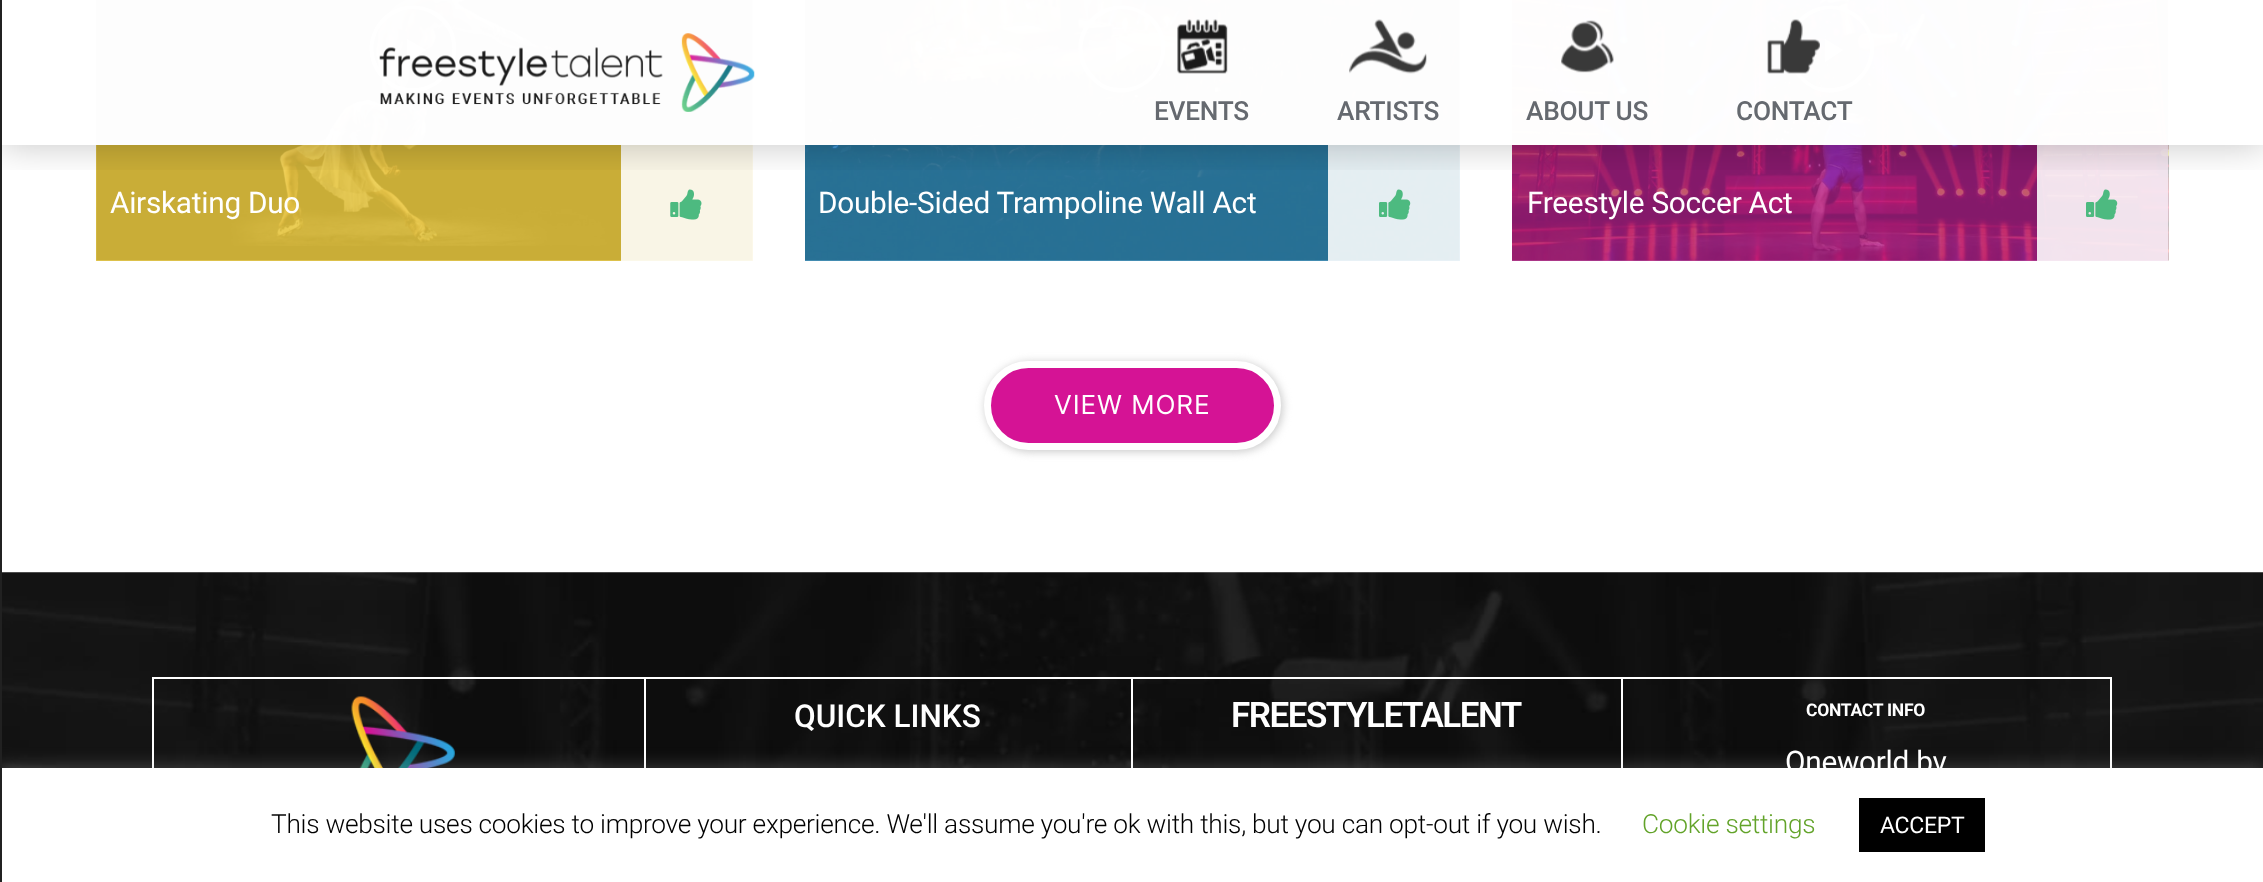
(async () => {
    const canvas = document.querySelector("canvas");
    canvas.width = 2263;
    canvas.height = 882;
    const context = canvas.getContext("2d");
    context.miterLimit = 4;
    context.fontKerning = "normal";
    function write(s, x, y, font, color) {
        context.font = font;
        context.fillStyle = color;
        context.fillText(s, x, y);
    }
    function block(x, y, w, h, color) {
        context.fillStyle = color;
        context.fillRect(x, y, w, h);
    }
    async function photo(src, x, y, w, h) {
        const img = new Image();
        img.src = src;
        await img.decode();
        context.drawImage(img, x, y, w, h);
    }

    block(0, 0, 2263, 882, "rgb(255, 255, 255)");
    await photo("media/6.png", 96, 0, 657, 261);
    context.beginPath();
    context.moveTo(444, 18);
    context.bezierCurveTo(437, 11, 427, 7, 417, 6);
    context.bezierCurveTo(377, 2, 354, 50, 382, 79);
    context.bezierCurveTo(410, 109, 460, 85, 456, 44);
    context.bezierCurveTo(455, 34, 451, 25, 444, 18);
    context.closePath();
    context.moveTo(441, 21);
    context.bezierCurveTo(466, 46, 447, 90, 411, 88);
    context.bezierCurveTo(402, 88, 393, 85, 387, 78);
    context.bezierCurveTo(348, 40, 402, -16, 441, 21);
    context.closePath();
    context.moveTo(407, 39);
    context.lineTo(407, 62);
    context.lineTo(426, 50);
    context.closePath();
    context.fill();
    block(96, 145, 657, 116, "rgba(245, 211, 67, 0.82)");
    block(621, 145, 132, 116, "rgba(255, 255, 255, 0.88)");
    await photo("media/7.png", 670, 189, 32, 31);
    await photo("media/8.png", 805, 0, 655, 261);
    context.fillStyle = "rgb(255, 255, 255)";
    context.beginPath();
    context.moveTo(1153, 18);
    context.bezierCurveTo(1145, 11, 1136, 7, 1126, 6);
    context.bezierCurveTo(1085, 2, 1063, 50, 1091, 79);
    context.bezierCurveTo(1119, 109, 1168, 85, 1165, 44);
    context.bezierCurveTo(1164, 34, 1160, 25, 1153, 18);
    context.closePath();
    context.moveTo(1150, 21);
    context.bezierCurveTo(1175, 46, 1156, 90, 1120, 88);
    context.bezierCurveTo(1111, 88, 1102, 85, 1096, 78);
    context.bezierCurveTo(1057, 40, 1111, -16, 1150, 21);
    context.closePath();
    context.moveTo(1116, 39);
    context.lineTo(1116, 62);
    context.lineTo(1135, 50);
    context.closePath();
    context.fill();
    block(805, 145, 655, 116, "rgba(45, 145, 198, 0.73)");
    block(1328, 145, 132, 116, "rgba(255, 255, 255, 0.88)");
    await photo("media/9.png", 1379, 189, 32, 31);
    await photo("media/10.png", 1512, 0, 657, 261);
    context.fillStyle = "rgb(255, 255, 255)";
    context.beginPath();
    context.moveTo(1861, 18);
    context.bezierCurveTo(1854, 11, 1845, 7, 1835, 6);
    context.bezierCurveTo(1794, 2, 1772, 50, 1800, 79);
    context.bezierCurveTo(1828, 109, 1877, 85, 1874, 44);
    context.bezierCurveTo(1873, 34, 1868, 25, 1861, 18);
    context.closePath();
    context.moveTo(1859, 21);
    context.bezierCurveTo(1884, 46, 1865, 90, 1828, 88);
    context.bezierCurveTo(1819, 88, 1811, 85, 1804, 78);
    context.bezierCurveTo(1765, 40, 1820, -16, 1859, 21);
    context.closePath();
    context.moveTo(1825, 39);
    context.lineTo(1825, 62);
    context.lineTo(1843, 50);
    context.closePath();
    context.fill();
    block(1512, 145, 656, 116, "rgba(176, 33, 142, 0.75)");
    block(2037, 145, 131, 116, "rgba(255, 255, 255, 0.88)");
    await photo("media/11.png", 2086, 189, 32, 31);
    context.save();
    context.beginPath();
    context.rect(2, 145, 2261, 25);
    context.clip();
    context.fillStyle = "rgba(0, 0, 0, 0.23)";
    context.filter = "blur(18.5px)";
    context.beginPath();
    context.rect(0, 0, 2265, 145);
    context.fill();
    context.filter = "none";
    context.restore();
    await photo("media/12.png", 2, 572, 2261, 196);
    context.strokeStyle = "rgb(255, 255, 255)";
    context.lineWidth = 2;
    context.strokeRect(153, 678, 1958, 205);
    await photo("media/13.png", 351, 696, 104, 72);
    block(1131, 679, 2, 89, "rgb(255, 255, 255)");
    block(644, 679, 2, 89, "rgb(255, 255, 255)");
    block(1621, 679, 2, 89, "rgb(255, 255, 255)");
    context.fillStyle = "rgba(172, 171, 171, 0.3)";
    context.filter = "blur(9px)";
    context.beginPath();
    context.rect(0, 767, 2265, 113);
    context.fill();
    context.filter = "none";
    block(0, 0, 2, 882, "rgb(33, 33, 33)");
    block(96, 0, 2073, 145, "rgba(255, 255, 255, 0.9)");
    block(96, 0, 2073, 145, "rgba(255, 255, 255, 0.9)");
    await photo("media/1.png", 379, 33, 376, 79);
    await photo("media/2.png", 1177, 19, 51, 55);
    context.letterSpacing = "-0.26px";
    write("EVENTS", 1154, 120, "500 26.25px Roboto", "rgb(101, 105, 111)");
    await photo("media/3.png", 1349, 19, 78, 55);
    write("ARTISTS", 1337, 120, "500 26.25px Roboto", "rgb(101, 105, 111)");
    await photo("media/4.png", 1561, 20, 53, 53);
    write("ABOUT US", 1526, 120, "500 26.25px Roboto", "rgb(101, 105, 111)");
    await photo("media/5.png", 1767, 19, 53, 55);
    write("CONTACT", 1736, 120, "500 26.25px Roboto", "rgb(101, 105, 111)");
    write("Airskating Duo", 110, 213, "29.75px Roboto", "rgb(255, 255, 255)");
    write("Double-Sided Trampoline Wall Act", 818, 213, "29.75px Roboto", "rgb(255, 255, 255)");
    write("Freestyle Soccer Act", 1527, 213, "29.75px Roboto", "rgb(255, 255, 255)");
    context.fillStyle = "rgb(204, 204, 204)";
    context.filter = "blur(4.5px)";
    context.beginPath();
    context.roundRect(985, 362, 298, 90, 45);
    context.fill();
    context.filter = "none";
    context.fillStyle = "rgb(213, 19, 149)";
    context.beginPath();
    context.roundRect(987.5, 364.5, 290, 82, 41);
    context.fill();
    context.lineWidth = 7;
    context.stroke();
    context.letterSpacing = "0.9px";
    write("VIEW MORE", 1054, 414, "26.25px Inter", "rgb(255, 255, 255)");
    context.letterSpacing = "0px";
    write("QUICK LINKS", 794, 727, "500 31.5px Roboto", "rgb(255, 255, 255)");
    context.letterSpacing = "-1.5px";
    write("FREESTYLETALENT", 1231, 727, "600 35px Roboto", "rgb(255, 255, 255)");
    context.letterSpacing = "-0.26px";
    write("CONTACT INFO", 1806, 716, "bold 17.5px Roboto", "rgb(255, 255, 255)");
    write("Oneworld bv", 1785, 772, "29.75px Roboto", "rgb(255, 255, 255)");
    block(2, 768, 2261, 114, "rgb(255, 255, 255)");
    write("This website uses cookies to improve your experience. We'll assume you're ok with this, but you can opt-out if you wish.", 271, 833, "300 26.25px Roboto", "rgb(0, 0, 0)");
    write("Cookie settings", 1642, 833, "300 26.25px Roboto", "rgb(98, 163, 41)");
    block(1859, 798, 126, 54, "rgb(0, 0, 0)");
    write("ACCEPT", 1880, 833, "23px Roboto", "rgb(255, 255, 255)");
})();
